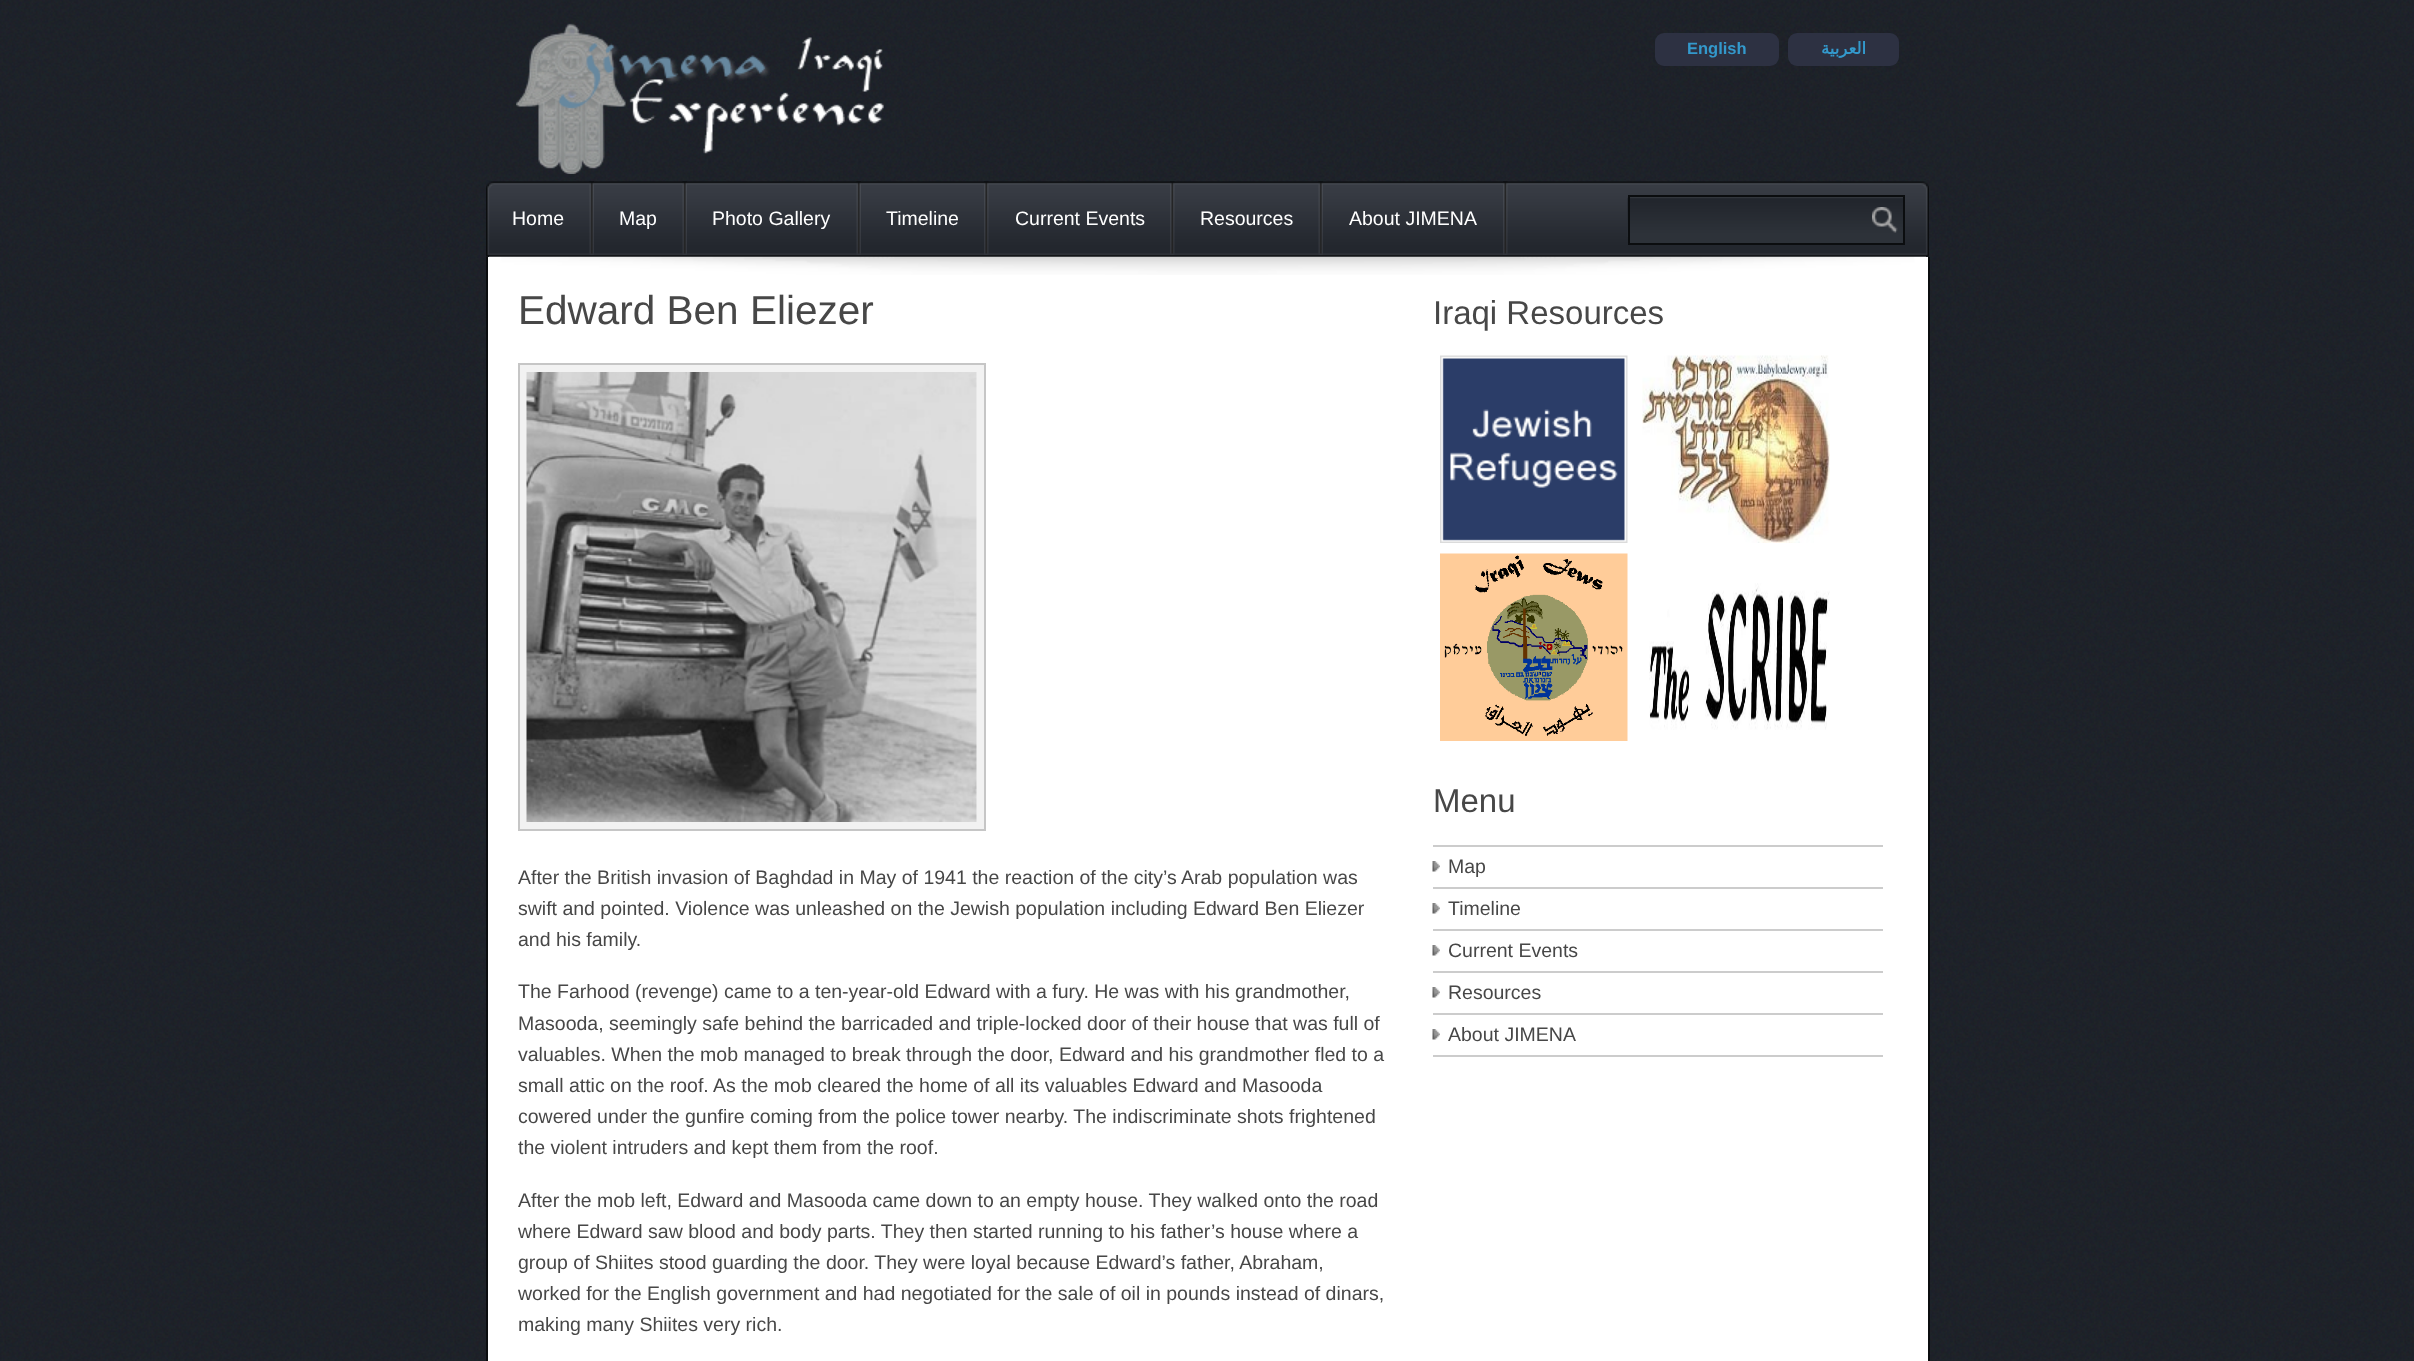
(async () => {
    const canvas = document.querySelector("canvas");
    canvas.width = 2414;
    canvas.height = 1361;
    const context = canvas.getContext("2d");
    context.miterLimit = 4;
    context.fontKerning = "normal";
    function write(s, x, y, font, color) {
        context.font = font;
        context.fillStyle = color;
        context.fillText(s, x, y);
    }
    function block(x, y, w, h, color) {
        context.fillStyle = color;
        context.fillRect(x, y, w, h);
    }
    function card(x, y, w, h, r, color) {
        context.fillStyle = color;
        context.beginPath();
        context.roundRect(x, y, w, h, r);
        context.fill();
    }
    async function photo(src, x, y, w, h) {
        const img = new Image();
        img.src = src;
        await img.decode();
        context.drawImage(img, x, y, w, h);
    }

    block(0, 0, 2414, 1361, "rgb(255, 255, 255)");
    await photo("media/1.png", 0, 0, 2414, 1361);
    await photo("media/2.png", 516, 23, 368, 151);
    card(1655, 33, 124, 33, 9, "rgb(45, 49, 66)");
    write("English", 1687, 54, "bold 16.5px Liberation Sans", "rgb(51, 153, 204)");
    card(1788, 33, 111, 33, 9, "rgb(45, 49, 66)");
    context.direction = "rtl";
    write("العربية", 1866, 54, "bold 16.5px DejaVu Sans", "rgb(51, 153, 204)");
    block(488, 257, 1440, 1104, "rgb(255, 255, 255)");
    await photo("media/13.png", 489, 256, 1437, 19);
    await photo("media/3.png", 486, 181, 1443, 76);
    await photo("media/4.png", 589, 181, 5, 74);
    context.direction = "ltr";
    write("Home", 512, 225, "19.5px Liberation Sans", "rgb(255, 255, 255)");
    await photo("media/5.png", 682, 181, 5, 74);
    write("Map", 619, 225, "19.5px Liberation Sans", "rgb(255, 255, 255)");
    await photo("media/6.png", 856, 181, 5, 74);
    write("Photo Gallery", 712, 225, "19.5px Liberation Sans", "rgb(255, 255, 255)");
    await photo("media/7.png", 984, 181, 5, 74);
    write("Timeline", 886, 225, "19.5px Liberation Sans", "rgb(255, 255, 255)");
    await photo("media/8.png", 1170, 181, 5, 74);
    write("Current Events", 1015, 225, "19.5px Liberation Sans", "rgb(255, 255, 255)");
    await photo("media/9.png", 1318, 181, 5, 74);
    write("Resources", 1200, 225, "19.5px Liberation Sans", "rgb(255, 255, 255)");
    await photo("media/10.png", 1503, 181, 5, 74);
    write("About JIMENA", 1349, 225, "19.5px Liberation Sans", "rgb(255, 255, 255)");
    block(1630, 237, 273, 6, "rgb(45, 50, 57)");
    await photo("media/11.png", 1627, 197, 276, 40);
    context.strokeStyle = "rgb(11, 13, 15)";
    context.lineWidth = 2;
    context.strokeRect(1629, 196, 275, 48);
    await photo("media/12.png", 1872, 207, 26, 26);
    block(1928, 257, 2, 1104, "rgb(11, 13, 15)");
    block(486, 257, 2, 1104, "rgb(11, 13, 15)");
    write("Edward Ben Eliezer", 518, 324, "40.5px Liberation Sans", "rgb(71, 71, 71)");
    context.fillStyle = "rgb(242, 242, 242)";
    context.beginPath();
    context.rect(519, 364, 466, 466);
    context.fill();
    context.strokeStyle = "rgb(198, 198, 198)";
    context.stroke();
    await photo("media/14.png", 526, 372, 451, 450);
    write("After the British invasion of Baghdad in May of 1941 the reaction of the city’s Arab population was", 518, 884, "19.5px Liberation Sans", "rgb(71, 71, 71)");
    write("swift and pointed. Violence was unleashed on the Jewish population including Edward Ben Eliezer", 518, 915, "19.5px Liberation Sans", "rgb(71, 71, 71)");
    write("and his family.", 518, 946, "19.5px Liberation Sans", "rgb(71, 71, 71)");
    write("The Farhood (revenge) came to a ten-year-old Edward with a fury. He was with his grandmother,", 518, 998, "19.5px Liberation Sans", "rgb(71, 71, 71)");
    write("Masooda, seemingly safe behind the barricaded and triple-locked door of their house that was full of", 518, 1030, "19.5px Liberation Sans", "rgb(71, 71, 71)");
    write("valuables. When the mob managed to break through the door, Edward and his grandmother fled to a", 518, 1061, "19.5px Liberation Sans", "rgb(71, 71, 71)");
    write("small attic on the roof. As the mob cleared the home of all its valuables Edward and Masooda", 518, 1092, "19.5px Liberation Sans", "rgb(71, 71, 71)");
    write("cowered under the gunfire coming from the police tower nearby. The indiscriminate shots frightened", 518, 1123, "19.5px Liberation Sans", "rgb(71, 71, 71)");
    write("the violent intruders and kept them from the roof.", 518, 1154, "19.5px Liberation Sans", "rgb(71, 71, 71)");
    write("After the mob left, Edward and Masooda came down to an empty house. They walked onto the road", 518, 1207, "19.5px Liberation Sans", "rgb(71, 71, 71)");
    write("where Edward saw blood and body parts. They then started running to his father’s house where a", 518, 1238, "19.5px Liberation Sans", "rgb(71, 71, 71)");
    write("group of Shiites stood guarding the door. They were loyal because Edward’s father, Abraham,", 518, 1269, "19.5px Liberation Sans", "rgb(71, 71, 71)");
    write("worked for the English government and had negotiated for the sale of oil in pounds instead of dinars,", 518, 1300, "19.5px Liberation Sans", "rgb(71, 71, 71)");
    write("making many Shiites very rich.", 518, 1331, "19.5px Liberation Sans", "rgb(71, 71, 71)");
    write("Iraqi Resources", 1433, 324, "33px Liberation Sans", "rgb(71, 71, 71)");
    await photo("media/15.png", 1440, 355, 188, 188);
    await photo("media/16.png", 1642, 355, 188, 188);
    await photo("media/17.png", 1440, 553, 188, 188);
    await photo("media/18.png", 1649, 583, 181, 147);
    write("Menu", 1433, 812, "33px Liberation Sans", "rgb(71, 71, 71)");
    block(1433, 1055, 450, 2, "rgb(204, 204, 204)");
    await photo("media/19.png", 1432, 861, 8, 11);
    block(1433, 845, 450, 2, "rgb(204, 204, 204)");
    write("Map", 1448, 873, "19.5px Liberation Sans", "rgb(71, 71, 71)");
    await photo("media/19.png", 1432, 903, 8, 11);
    block(1433, 887, 450, 2, "rgb(204, 204, 204)");
    write("Timeline", 1448, 915, "19.5px Liberation Sans", "rgb(71, 71, 71)");
    await photo("media/19.png", 1432, 945, 8, 11);
    block(1433, 929, 450, 2, "rgb(204, 204, 204)");
    write("Current Events", 1448, 957, "19.5px Liberation Sans", "rgb(71, 71, 71)");
    await photo("media/19.png", 1432, 987, 8, 11);
    block(1433, 971, 450, 2, "rgb(204, 204, 204)");
    write("Resources", 1448, 999, "19.5px Liberation Sans", "rgb(71, 71, 71)");
    await photo("media/19.png", 1432, 1029, 8, 11);
    block(1433, 1013, 450, 2, "rgb(204, 204, 204)");
    write("About JIMENA", 1448, 1041, "19.5px Liberation Sans", "rgb(71, 71, 71)");
})();
